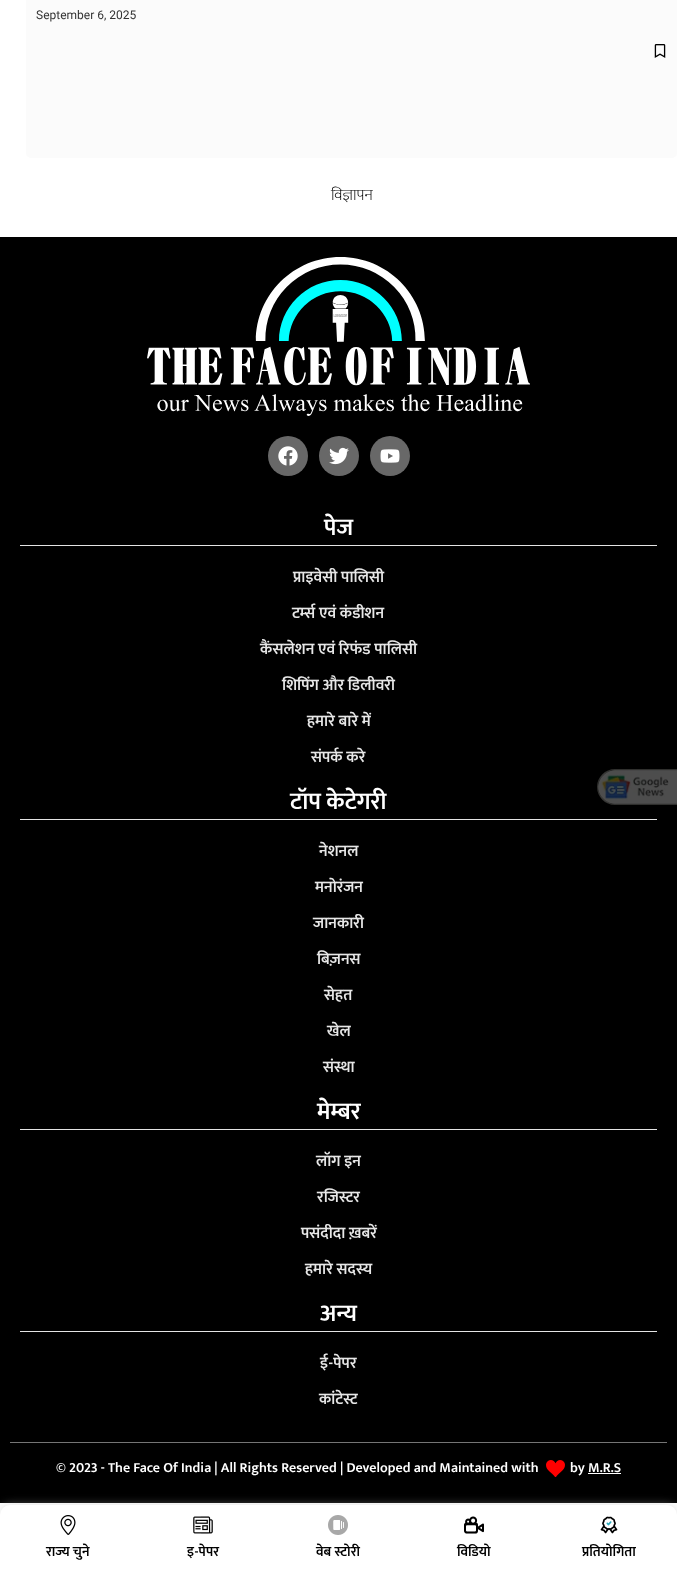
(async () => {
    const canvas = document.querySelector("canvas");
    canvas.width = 677;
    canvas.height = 1573;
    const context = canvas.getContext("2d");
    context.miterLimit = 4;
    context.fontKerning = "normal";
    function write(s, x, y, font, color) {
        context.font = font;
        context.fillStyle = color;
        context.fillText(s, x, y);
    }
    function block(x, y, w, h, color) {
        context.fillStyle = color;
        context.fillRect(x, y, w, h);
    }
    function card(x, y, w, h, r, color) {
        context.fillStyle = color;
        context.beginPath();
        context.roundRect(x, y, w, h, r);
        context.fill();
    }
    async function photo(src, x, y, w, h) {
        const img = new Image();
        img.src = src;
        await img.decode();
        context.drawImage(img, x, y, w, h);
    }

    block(0, 0, 677, 1573, "rgb(255, 255, 255)");
    card(26, -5, 651, 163, 5, "rgb(251, 251, 251)");
    write("September 6, 2025", 36, 19, "12px Roboto", "rgb(51, 51, 51)");
    await photo("media/1.png", 654, 44, 12, 14);
    write("विज्ञापन", 331, 200, "300 16px Mukta", "rgb(0, 0, 0)");
    block(0, 237, 677, 1266, "rgb(0, 0, 0)");
    await photo("media/2.png", 598, 770, 79, 34);
    context.fillStyle = "rgba(157, 157, 148, 0.3)";
    context.beginPath();
    context.moveTo(615, 769);
    context.lineTo(677, 769);
    context.lineTo(677, 805);
    context.lineTo(615, 805);
    context.bezierCurveTo(605, 805, 597, 797, 597, 787);
    context.bezierCurveTo(597, 777, 605, 769, 615, 769);
    context.closePath();
    context.moveTo(615, 770);
    context.lineTo(677, 770);
    context.lineTo(677, 804);
    context.lineTo(615, 804);
    context.bezierCurveTo(606, 804, 598, 796, 598, 787);
    context.bezierCurveTo(598, 778, 606, 770, 615, 770);
    context.closePath();
    context.fill("evenodd");
    await photo("media/3.png", 147, 257, 383, 159);
    context.fillStyle = "rgb(104, 104, 104)";
    context.beginPath();
    context.arc(288, 456, 20, 0, Math.PI * 2);
    context.fill();
    await photo("media/4.png", 278, 446, 20, 20);
    context.beginPath();
    context.arc(339, 456, 20, 0, Math.PI * 2);
    context.fill();
    await photo("media/5.png", 329, 447, 20, 18);
    context.beginPath();
    context.arc(390, 456, 20, 0, Math.PI * 2);
    context.fill();
    await photo("media/6.png", 380, 449, 20, 14);
    block(10, 1442, 657, 1, "rgb(117, 117, 117)");
    block(20, 545, 637, 1, "rgb(228, 228, 228)");
    write("पेज", 324, 535, "600 24px Mukta", "rgb(255, 255, 255)");
    write("प्राइवेसी पालिसी", 293, 582, "600 16px Mukta", "rgb(231, 231, 231)");
    write("टर्म्स एवं कंडीशन", 292, 618, "600 16px Mukta", "rgb(231, 231, 231)");
    write("कैंसलेशन एवं रिफंड पालिसी", 260, 654, "600 16px Mukta", "rgb(231, 231, 231)");
    write("शिपिंग और डिलीवरी", 282, 690, "600 16px Mukta", "rgb(231, 231, 231)");
    write("हमारे बारे में", 307, 726, "600 16px Mukta", "rgb(231, 231, 231)");
    write("संपर्क करे", 311, 762, "600 16px Mukta", "rgb(231, 231, 231)");
    block(20, 819, 637, 1, "rgb(228, 228, 228)");
    write("टॉप केटेगरी", 290, 809, "600 24px Mukta", "rgb(255, 255, 255)");
    write("नेशनल", 319, 856, "600 16px Mukta", "rgb(231, 231, 231)");
    write("मनोरंजन", 315, 892, "600 16px Mukta", "rgb(231, 231, 231)");
    write("जानकारी", 313, 928, "600 16px Mukta", "rgb(231, 231, 231)");
    write("बिज़नस", 317, 964, "600 16px Mukta", "rgb(231, 231, 231)");
    write("सेहत", 324, 1000, "600 16px Mukta", "rgb(231, 231, 231)");
    write("खेल", 327, 1036, "600 16px Mukta", "rgb(231, 231, 231)");
    write("संस्था", 323, 1072, "600 16px Mukta", "rgb(231, 231, 231)");
    block(20, 1129, 637, 1, "rgb(228, 228, 228)");
    write("मेम्बर", 317, 1119, "600 24px Mukta", "rgb(255, 255, 255)");
    write("लॉग इन", 316, 1166, "600 16px Mukta", "rgb(231, 231, 231)");
    write("रजिस्टर", 317, 1202, "600 16px Mukta", "rgb(231, 231, 231)");
    write("पसंदीदा ख़बरें", 301, 1238, "600 16px Mukta", "rgb(231, 231, 231)");
    write("हमारे सदस्य", 305, 1274, "600 16px Mukta", "rgb(231, 231, 231)");
    block(20, 1331, 637, 1, "rgb(228, 228, 228)");
    write("अन्य", 320, 1321, "600 24px Mukta", "rgb(255, 255, 255)");
    write("ई-पेपर", 320, 1368, "600 16px Mukta", "rgb(231, 231, 231)");
    write("कांटेस्ट", 319, 1404, "600 16px Mukta", "rgb(231, 231, 231)");
    write("© 2023 - The Face Of India | All Rights Reserved | Developed and Maintained with", 56, 1472, "600 14px Mukta", "rgb(255, 255, 255)");
    await photo("media/7.png", 546, 1460, 19, 17);
    write("by M.R.S", 570, 1472, "600 14px Mukta", "rgb(255, 255, 255)");
    block(588, 1473, 33, 1, "rgb(255, 255, 255)");
    context.fillStyle = "rgba(197, 197, 197, 0.5)";
    context.filter = "blur(5px)";
    context.beginPath();
    context.roundRect(0, 1505, 677, 68, 10);
    context.fill();
    context.filter = "none";
    context.fillStyle = "rgb(255, 255, 255)";
    context.beginPath();
    context.roundRect(0, 1505, 677, 68, [10, 10, 0, 0]);
    context.fill();
    await photo("media/8.png", 60, 1515, 16, 20);
    write("राज्य चुने", 46, 1556, "600 14px Mukta", "rgb(0, 0, 0)");
    await photo("media/9.png", 193, 1516, 20, 18);
    write("इ-पेपर", 187, 1556, "600 14px Mukta", "rgb(0, 0, 0)");
    await photo("media/10.png", 328, 1515, 20, 20);
    write("वेब स्टोरी", 316, 1556, "600 14px Mukta", "rgb(0, 0, 0)");
    await photo("media/11.png", 464, 1516, 20, 18);
    write("विडियो", 457, 1556, "600 14px Mukta", "rgb(0, 0, 0)");
    await photo("media/12.png", 600, 1516, 18, 18);
    write("प्रतियोगिता", 582, 1556, "600 14px Mukta", "rgb(0, 0, 0)");
})();
